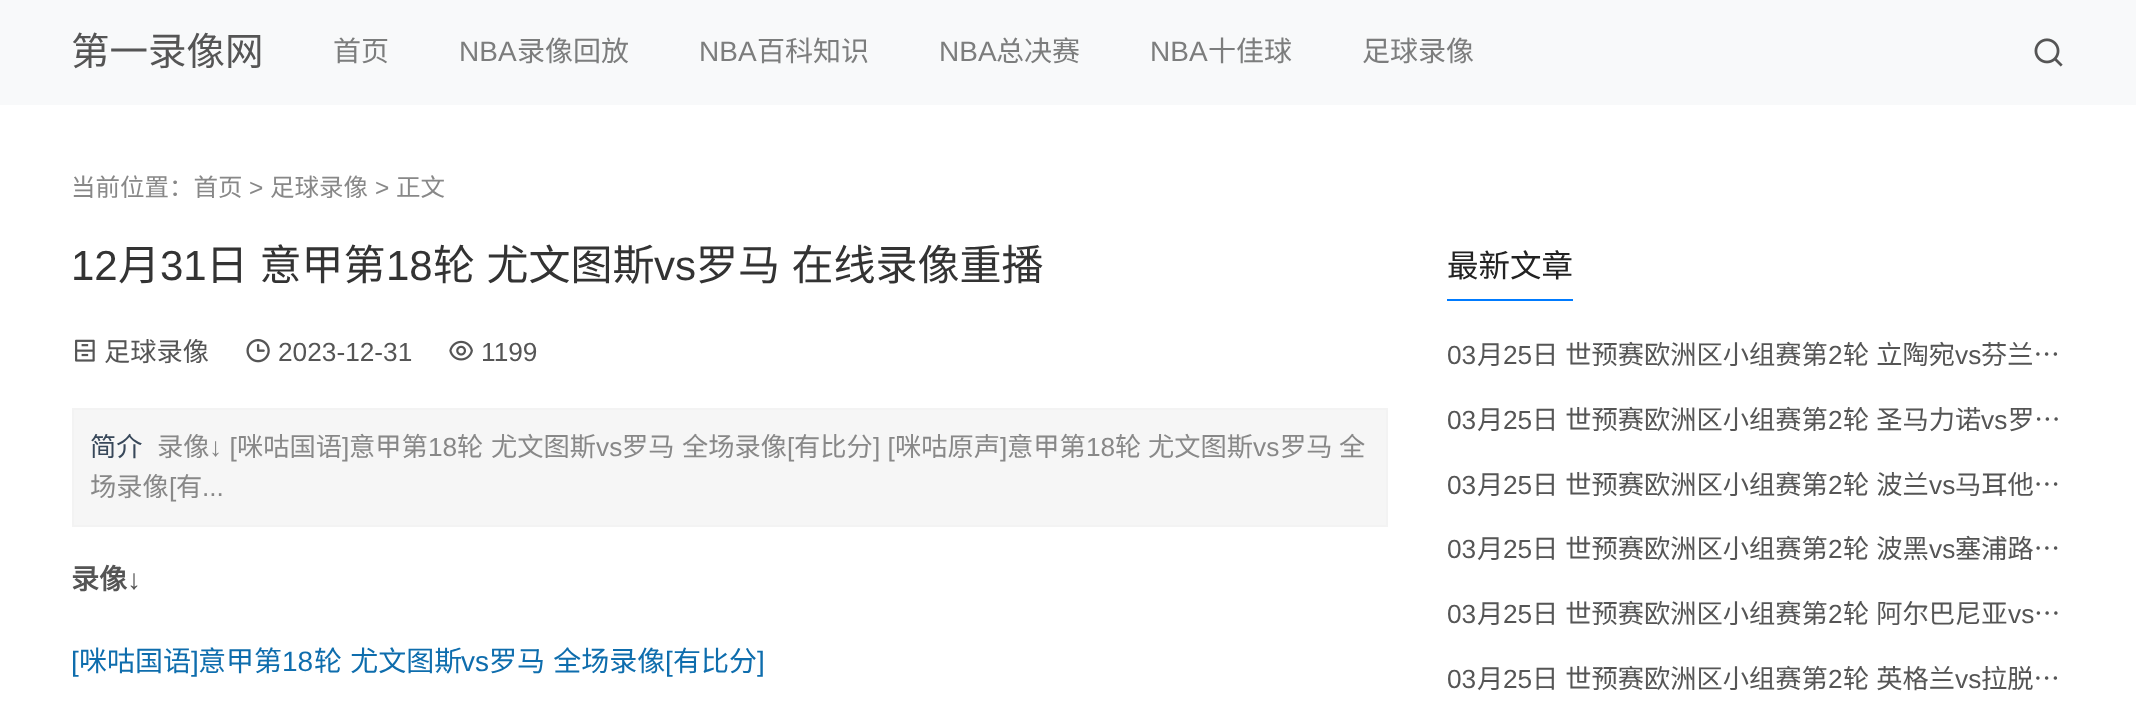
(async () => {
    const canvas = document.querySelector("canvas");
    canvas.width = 2136;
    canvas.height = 728;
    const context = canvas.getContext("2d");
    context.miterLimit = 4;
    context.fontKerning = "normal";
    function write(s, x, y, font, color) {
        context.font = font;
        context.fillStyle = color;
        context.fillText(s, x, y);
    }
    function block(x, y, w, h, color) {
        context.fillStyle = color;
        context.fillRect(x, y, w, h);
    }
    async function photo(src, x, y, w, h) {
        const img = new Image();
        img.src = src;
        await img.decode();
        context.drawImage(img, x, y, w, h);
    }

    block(0, 0, 2136, 728, "rgb(255, 255, 255)");
    block(0, 0, 2136, 105, "rgb(248, 249, 250)");
    write("第一录像网", 71, 65, "38.5px Noto Sans CJK SC", "rgb(85, 85, 85)");
    write("首页", 333, 61, "28px Noto Sans CJK SC", "rgb(124, 125, 125)");
    write("NBA", 459, 61, "28px Liberation Sans", "rgb(124, 125, 125)");
    write("录像回放", 517, 61, "28px Noto Sans CJK SC", "rgb(124, 125, 125)");
    write("NBA", 699, 61, "28px Liberation Sans", "rgb(124, 125, 125)");
    write("百科知识", 757, 61, "28px Noto Sans CJK SC", "rgb(124, 125, 125)");
    write("NBA", 939, 61, "28px Liberation Sans", "rgb(124, 125, 125)");
    write("总决赛", 996, 61, "28px Noto Sans CJK SC", "rgb(124, 125, 125)");
    write("NBA", 1150, 61, "28px Liberation Sans", "rgb(124, 125, 125)");
    write("十佳球", 1208, 61, "28px Noto Sans CJK SC", "rgb(124, 125, 125)");
    write("足球录像", 1362, 61, "28px Noto Sans CJK SC", "rgb(124, 125, 125)");
    await photo("media/1.png", 2034, 38, 29, 29);
    write("当前位置：首页", 71, 196, "24.5px Noto Sans CJK SC", "rgb(136, 136, 136)");
    write(">", 249, 196, "24.5px Liberation Sans", "rgb(136, 136, 136)");
    write("足球录像", 270, 196, "24.5px Noto Sans CJK SC", "rgb(136, 136, 136)");
    write(">", 375, 196, "24.5px Liberation Sans", "rgb(136, 136, 136)");
    write("正文", 396, 196, "24.5px Noto Sans CJK SC", "rgb(136, 136, 136)");
    write("12", 71, 280, "42px Liberation Sans", "rgb(51, 51, 51)");
    write("月", 118, 280, "42px Noto Sans CJK SC", "rgb(51, 51, 51)");
    write("31", 160, 280, "42px Liberation Sans", "rgb(51, 51, 51)");
    context.wordSpacing = "2px";
    write("日 意甲第", 206, 280, "42px Noto Sans CJK SC", "rgb(51, 51, 51)");
    context.wordSpacing = "0px";
    write("18", 386, 280, "42px Liberation Sans", "rgb(51, 51, 51)");
    context.wordSpacing = "2px";
    write("轮 尤文图斯", 433, 280, "42px Noto Sans CJK SC", "rgb(51, 51, 51)");
    context.wordSpacing = "0px";
    write("vs", 654, 280, "42px Liberation Sans", "rgb(51, 51, 51)");
    context.wordSpacing = "2px";
    write("罗马 在线录像重播", 696, 280, "42px Noto Sans CJK SC", "rgb(51, 51, 51)");
    await photo("media/2.png", 75, 339, 20, 23);
    context.wordSpacing = "0px";
    write("足球录像", 104, 361, "26.25px Noto Sans CJK SC", "rgb(85, 85, 85)");
    await photo("media/3.png", 246, 339, 24, 24);
    write("2023-12-31", 278, 361, "26.25px Liberation Sans", "rgb(85, 85, 85)");
    await photo("media/4.png", 449, 340, 24, 21);
    write("1199", 481, 361, "26.25px Liberation Sans", "rgb(85, 85, 85)");
    context.fillStyle = "rgb(246, 246, 246)";
    context.beginPath();
    context.rect(73, 409, 1314, 117);
    context.fill();
    context.strokeStyle = "rgb(243, 243, 243)";
    context.lineWidth = 2;
    context.stroke();
    write("简介", 90, 456, "26.25px Noto Sans CJK SC", "rgb(56, 72, 90)");
    write("录像", 157, 456, "26.25px Noto Sans CJK SC", "rgb(136, 136, 136)");
    write("↓ [", 209, 456, "26.25px Liberation Sans", "rgb(136, 136, 136)");
    write("咪咕国语", 237, 456, "26.25px Noto Sans CJK SC", "rgb(136, 136, 136)");
    write("]", 342, 456, "26.25px Liberation Sans", "rgb(136, 136, 136)");
    write("意甲第", 349, 456, "26.25px Noto Sans CJK SC", "rgb(136, 136, 136)");
    write("18", 428, 456, "26.25px Liberation Sans", "rgb(136, 136, 136)");
    write("轮", 457, 456, "26.25px Noto Sans CJK SC", "rgb(136, 136, 136)");
    write("尤文图斯", 491, 456, "26.25px Noto Sans CJK SC", "rgb(136, 136, 136)");
    write("vs", 596, 456, "26.25px Liberation Sans", "rgb(136, 136, 136)");
    write("罗马", 622, 456, "26.25px Noto Sans CJK SC", "rgb(136, 136, 136)");
    write("全场录像", 682, 456, "26.25px Noto Sans CJK SC", "rgb(136, 136, 136)");
    write("[", 787, 456, "26.25px Liberation Sans", "rgb(136, 136, 136)");
    write("有比分", 794, 456, "26.25px Noto Sans CJK SC", "rgb(136, 136, 136)");
    write("] [", 873, 456, "26.25px Liberation Sans", "rgb(136, 136, 136)");
    write("咪咕原声", 895, 456, "26.25px Noto Sans CJK SC", "rgb(136, 136, 136)");
    write("]", 1000, 456, "26.25px Liberation Sans", "rgb(136, 136, 136)");
    write("意甲第", 1007, 456, "26.25px Noto Sans CJK SC", "rgb(136, 136, 136)");
    write("18", 1086, 456, "26.25px Liberation Sans", "rgb(136, 136, 136)");
    write("轮", 1115, 456, "26.25px Noto Sans CJK SC", "rgb(136, 136, 136)");
    write("尤文图斯", 1148, 456, "26.25px Noto Sans CJK SC", "rgb(136, 136, 136)");
    write("vs", 1253, 456, "26.25px Liberation Sans", "rgb(136, 136, 136)");
    write("罗马", 1280, 456, "26.25px Noto Sans CJK SC", "rgb(136, 136, 136)");
    write("全", 1339, 456, "26.25px Noto Sans CJK SC", "rgb(136, 136, 136)");
    write("场录像", 90, 496, "26.25px Noto Sans CJK SC", "rgb(136, 136, 136)");
    write("[", 169, 496, "26.25px Liberation Sans", "rgb(136, 136, 136)");
    write("有", 176, 496, "26.25px Noto Sans CJK SC", "rgb(136, 136, 136)");
    write("...", 202, 496, "26.25px Liberation Sans", "rgb(136, 136, 136)");
    write("录像", 71, 589, "bold 28px Noto Sans CJK SC", "rgb(85, 85, 85)");
    write("↓", 127, 589, "bold 28px Liberation Sans", "rgb(85, 85, 85)");
    write("[", 71, 671, "28px Liberation Sans", "rgb(14, 109, 173)");
    write("咪咕国语", 79, 671, "28px Noto Sans CJK SC", "rgb(14, 109, 173)");
    write("]", 191, 671, "28px Liberation Sans", "rgb(14, 109, 173)");
    write("意甲第", 198, 671, "28px Noto Sans CJK SC", "rgb(14, 109, 173)");
    write("18", 282, 671, "28px Liberation Sans", "rgb(14, 109, 173)");
    context.wordSpacing = "2px";
    write("轮 尤文图斯", 314, 671, "28px Noto Sans CJK SC", "rgb(14, 109, 173)");
    context.wordSpacing = "0px";
    write("vs", 461, 671, "28px Liberation Sans", "rgb(14, 109, 173)");
    context.wordSpacing = "2px";
    write("罗马 全场录像", 489, 671, "28px Noto Sans CJK SC", "rgb(14, 109, 173)");
    context.wordSpacing = "0px";
    write("[", 665, 671, "28px Liberation Sans", "rgb(14, 109, 173)");
    write("有比分", 673, 671, "28px Noto Sans CJK SC", "rgb(14, 109, 173)");
    write("]", 757, 671, "28px Liberation Sans", "rgb(14, 109, 173)");
    block(1447, 299, 126, 2, "rgb(0, 123, 255)");
    write("最新文章", 1447, 277, "31.5px Noto Sans CJK SC", "rgb(34, 34, 34)");
    write("03", 1447, 364, "26.25px Liberation Sans", "rgb(85, 85, 85)");
    write("月", 1477, 364, "26.25px Noto Sans CJK SC", "rgb(85, 85, 85)");
    write("25", 1503, 364, "26.25px Liberation Sans", "rgb(85, 85, 85)");
    context.wordSpacing = "1px";
    write("日 世预赛欧洲区小组赛第", 1532, 364, "26.25px Noto Sans CJK SC", "rgb(85, 85, 85)");
    context.wordSpacing = "0px";
    write("2", 1828, 364, "26.25px Liberation Sans", "rgb(85, 85, 85)");
    context.wordSpacing = "1px";
    write("轮 立陶宛", 1843, 364, "26.25px Noto Sans CJK SC", "rgb(85, 85, 85)");
    context.wordSpacing = "0px";
    write("vs", 1955, 364, "26.25px Liberation Sans", "rgb(85, 85, 85)");
    context.wordSpacing = "1px";
    write("芬兰…", 1981, 364, "26.25px Noto Sans CJK SC", "rgb(85, 85, 85)");
    context.wordSpacing = "0px";
    write("03", 1447, 429, "26.25px Liberation Sans", "rgb(85, 85, 85)");
    write("月", 1477, 429, "26.25px Noto Sans CJK SC", "rgb(85, 85, 85)");
    write("25", 1503, 429, "26.25px Liberation Sans", "rgb(85, 85, 85)");
    context.wordSpacing = "1px";
    write("日 世预赛欧洲区小组赛第", 1532, 429, "26.25px Noto Sans CJK SC", "rgb(85, 85, 85)");
    context.wordSpacing = "0px";
    write("2", 1828, 429, "26.25px Liberation Sans", "rgb(85, 85, 85)");
    context.wordSpacing = "1px";
    write("轮 圣马力诺", 1843, 429, "26.25px Noto Sans CJK SC", "rgb(85, 85, 85)");
    context.wordSpacing = "0px";
    write("vs", 1981, 429, "26.25px Liberation Sans", "rgb(85, 85, 85)");
    context.wordSpacing = "1px";
    write("罗…", 2008, 429, "26.25px Noto Sans CJK SC", "rgb(85, 85, 85)");
    context.wordSpacing = "0px";
    write("03", 1447, 494, "26.25px Liberation Sans", "rgb(85, 85, 85)");
    write("月", 1477, 494, "26.25px Noto Sans CJK SC", "rgb(85, 85, 85)");
    write("25", 1503, 494, "26.25px Liberation Sans", "rgb(85, 85, 85)");
    context.wordSpacing = "1px";
    write("日 世预赛欧洲区小组赛第", 1532, 494, "26.25px Noto Sans CJK SC", "rgb(85, 85, 85)");
    context.wordSpacing = "0px";
    write("2", 1828, 494, "26.25px Liberation Sans", "rgb(85, 85, 85)");
    context.wordSpacing = "1px";
    write("轮 波兰", 1843, 494, "26.25px Noto Sans CJK SC", "rgb(85, 85, 85)");
    context.wordSpacing = "0px";
    write("vs", 1929, 494, "26.25px Liberation Sans", "rgb(85, 85, 85)");
    context.wordSpacing = "1px";
    write("马耳他…", 1955, 494, "26.25px Noto Sans CJK SC", "rgb(85, 85, 85)");
    context.wordSpacing = "0px";
    write("03", 1447, 558, "26.25px Liberation Sans", "rgb(85, 85, 85)");
    write("月", 1477, 558, "26.25px Noto Sans CJK SC", "rgb(85, 85, 85)");
    write("25", 1503, 558, "26.25px Liberation Sans", "rgb(85, 85, 85)");
    context.wordSpacing = "1px";
    write("日 世预赛欧洲区小组赛第", 1532, 558, "26.25px Noto Sans CJK SC", "rgb(85, 85, 85)");
    context.wordSpacing = "0px";
    write("2", 1828, 558, "26.25px Liberation Sans", "rgb(85, 85, 85)");
    context.wordSpacing = "1px";
    write("轮 波黑", 1843, 558, "26.25px Noto Sans CJK SC", "rgb(85, 85, 85)");
    context.wordSpacing = "0px";
    write("vs", 1929, 558, "26.25px Liberation Sans", "rgb(85, 85, 85)");
    context.wordSpacing = "1px";
    write("塞浦路…", 1955, 558, "26.25px Noto Sans CJK SC", "rgb(85, 85, 85)");
    context.wordSpacing = "0px";
    write("03", 1447, 623, "26.25px Liberation Sans", "rgb(85, 85, 85)");
    write("月", 1477, 623, "26.25px Noto Sans CJK SC", "rgb(85, 85, 85)");
    write("25", 1503, 623, "26.25px Liberation Sans", "rgb(85, 85, 85)");
    context.wordSpacing = "1px";
    write("日 世预赛欧洲区小组赛第", 1532, 623, "26.25px Noto Sans CJK SC", "rgb(85, 85, 85)");
    context.wordSpacing = "0px";
    write("2", 1828, 623, "26.25px Liberation Sans", "rgb(85, 85, 85)");
    context.wordSpacing = "1px";
    write("轮 阿尔巴尼亚", 1843, 623, "26.25px Noto Sans CJK SC", "rgb(85, 85, 85)");
    context.wordSpacing = "0px";
    write("vs", 2008, 623, "26.25px Liberation Sans", "rgb(85, 85, 85)");
    context.wordSpacing = "1px";
    write("…", 2034, 623, "26.25px Noto Sans CJK SC", "rgb(85, 85, 85)");
    context.wordSpacing = "0px";
    write("03", 1447, 688, "26.25px Liberation Sans", "rgb(85, 85, 85)");
    write("月", 1477, 688, "26.25px Noto Sans CJK SC", "rgb(85, 85, 85)");
    write("25", 1503, 688, "26.25px Liberation Sans", "rgb(85, 85, 85)");
    context.wordSpacing = "1px";
    write("日 世预赛欧洲区小组赛第", 1532, 688, "26.25px Noto Sans CJK SC", "rgb(85, 85, 85)");
    context.wordSpacing = "0px";
    write("2", 1828, 688, "26.25px Liberation Sans", "rgb(85, 85, 85)");
    context.wordSpacing = "1px";
    write("轮 英格兰", 1843, 688, "26.25px Noto Sans CJK SC", "rgb(85, 85, 85)");
    context.wordSpacing = "0px";
    write("vs", 1955, 688, "26.25px Liberation Sans", "rgb(85, 85, 85)");
    context.wordSpacing = "1px";
    write("拉脱…", 1981, 688, "26.25px Noto Sans CJK SC", "rgb(85, 85, 85)");
})();
